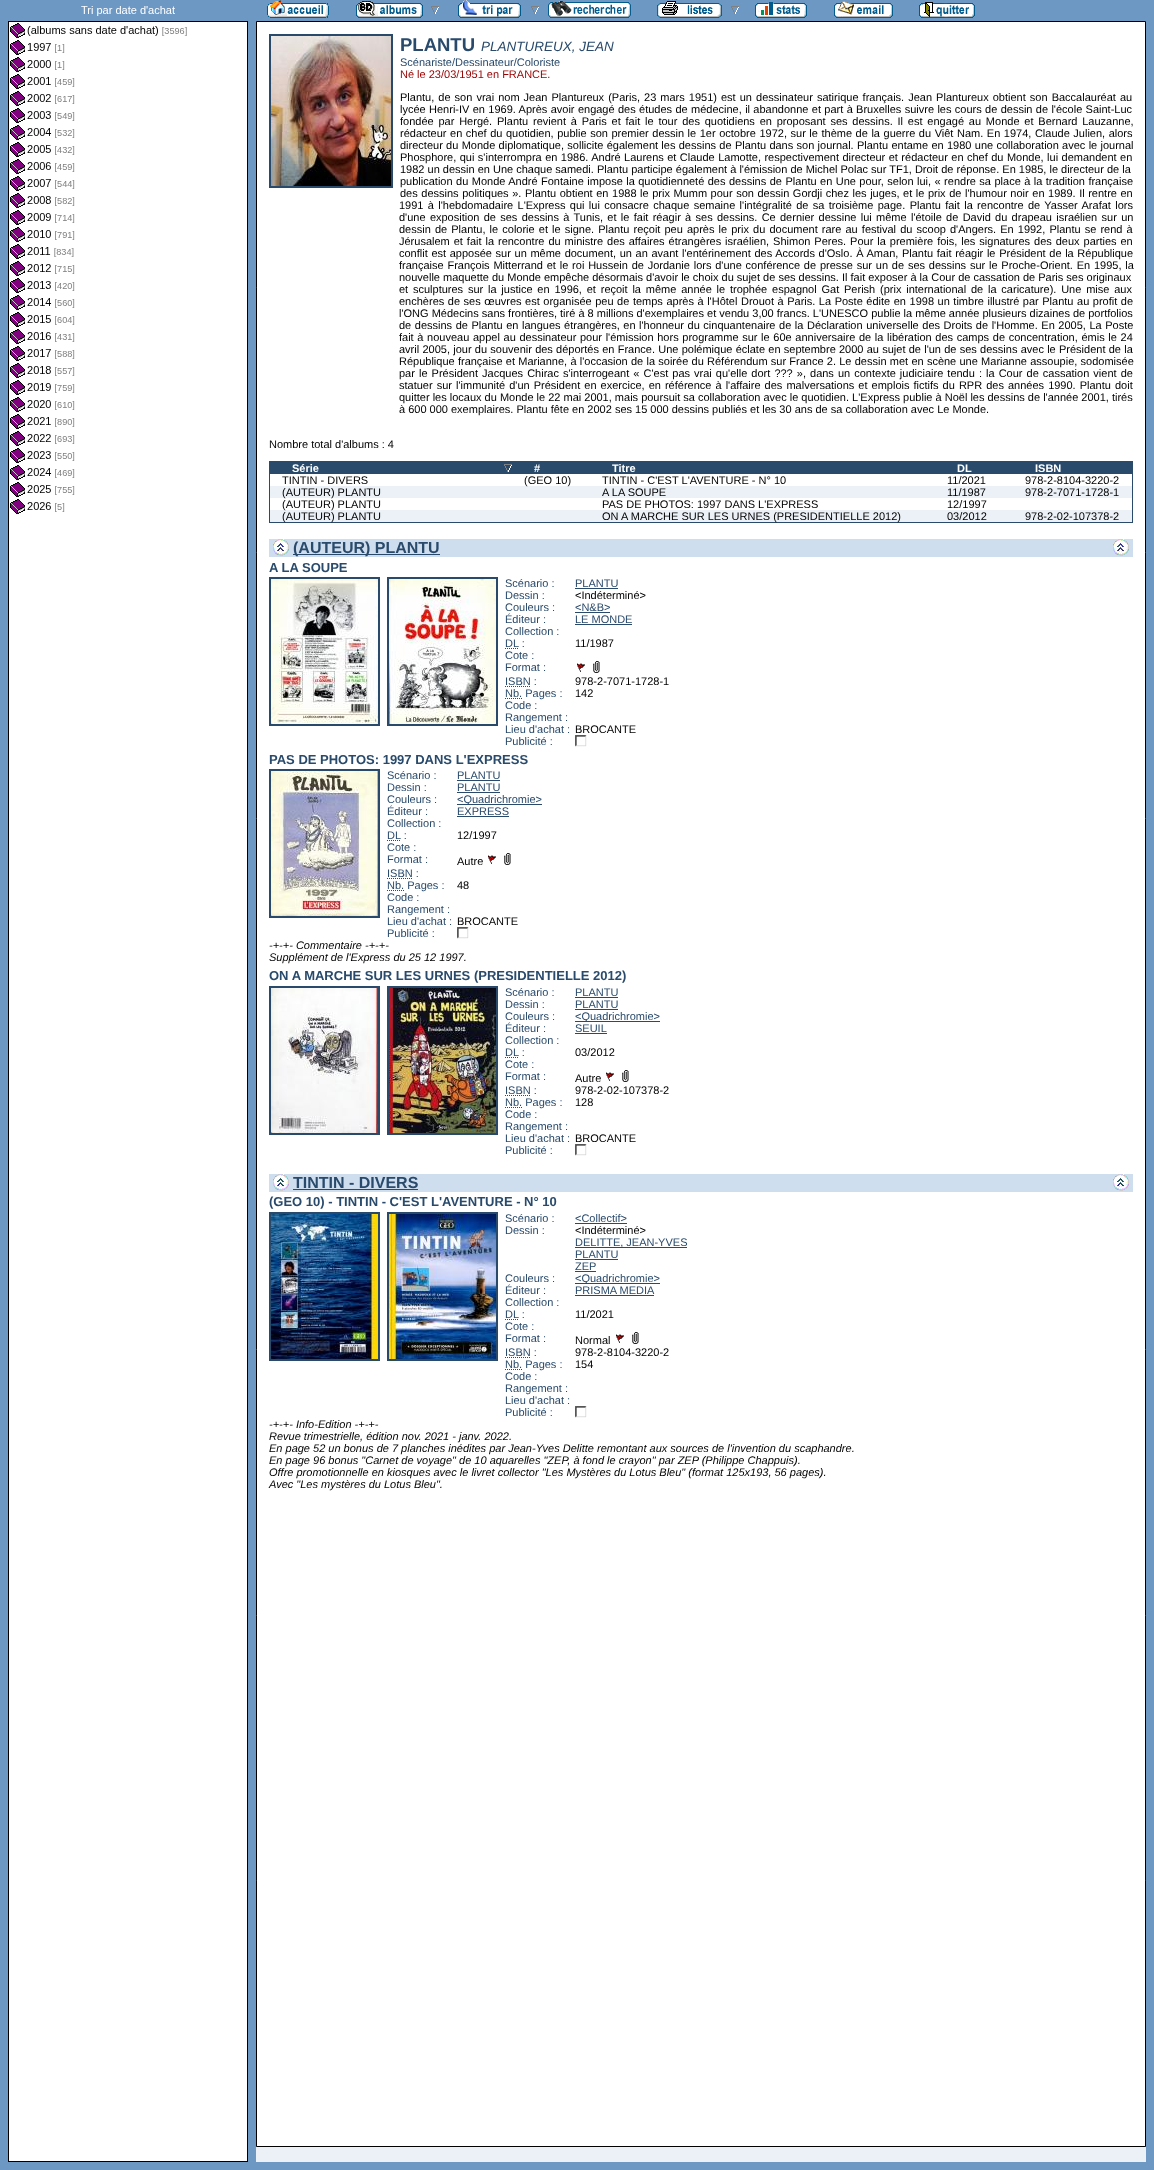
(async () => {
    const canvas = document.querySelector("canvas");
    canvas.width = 1154;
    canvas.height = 2170;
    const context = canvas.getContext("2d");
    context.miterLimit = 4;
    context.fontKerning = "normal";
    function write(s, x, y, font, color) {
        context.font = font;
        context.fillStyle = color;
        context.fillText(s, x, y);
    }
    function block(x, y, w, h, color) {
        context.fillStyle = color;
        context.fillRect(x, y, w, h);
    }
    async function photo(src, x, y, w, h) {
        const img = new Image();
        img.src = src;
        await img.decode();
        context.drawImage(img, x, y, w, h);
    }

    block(0, 0, 1154, 2170, "rgb(109, 152, 195)");
    await photo("media/1.png", 8, 6, 240, 2156);
    await photo("media/2.png", 267, 0, 62, 18);
    await photo("media/3.png", 431, 6, 8, 8);
    await photo("media/4.png", 356, 1, 67, 17);
    await photo("media/3.png", 531, 6, 8, 8);
    await photo("media/5.png", 458, 0, 63, 18);
    await photo("media/6.png", 548, 1, 83, 17);
    await photo("media/3.png", 731, 6, 8, 8);
    await photo("media/7.png", 657, 1, 65, 17);
    await photo("media/8.png", 755, 2, 52, 16);
    await photo("media/9.png", 834, 1, 59, 17);
    await photo("media/10.png", 919, 2, 56, 16);
    context.fillStyle = "rgb(255, 255, 255)";
    context.beginPath();
    context.rect(256.5, 21.5, 889, 2125);
    context.fill();
    context.strokeStyle = "rgb(0, 0, 0)";
    context.stroke();
    context.strokeStyle = "rgb(41, 74, 107)";
    context.lineWidth = 2;
    context.strokeRect(270, 35, 122, 152);
    await photo("media/11.png", 271, 36, 120, 150);
    write("PLANTU", 400, 51, "bold 18.5px Liberation Sans", "rgb(41, 74, 107)");
    write("PLANTUREUX, JEAN", 481, 51, "italic 13.5px Liberation Sans", "rgb(41, 74, 107)");
    write("Scénariste/Dessinateur/Coloriste", 400, 66, "11px Liberation Sans", "rgb(41, 74, 107)");
    write("Né le 23/03/1951 en FRANCE.", 400, 78, "11px Liberation Sans", "rgb(153, 0, 0)");
    context.wordSpacing = "1px";
    write("Plantu, de son vrai nom Jean Plantureux (Paris, 23 mars 1951) est un dessinateur satirique français. Jean Plantureux obtient son Baccalauréat au", 400, 101, "11px Liberation Sans", "rgb(0, 0, 0)");
    context.wordSpacing = "0.3px";
    write("lycée Henri-IV en 1969. Après avoir engagé des études de médecine, il abandonne et part à Bruxelles suivre les cours de dessin de l'école Saint-Luc", 400, 113, "11px Liberation Sans", "rgb(0, 0, 0)");
    context.wordSpacing = "1.75px";
    write("fondée par Hergé. Plantu revient à Paris et fait le tour des quotidiens en proposant ses dessins. Il est engagé au Monde et Bernard Lauzanne,", 400, 125, "11px Liberation Sans", "rgb(0, 0, 0)");
    context.wordSpacing = "0.5px";
    write("rédacteur en chef du quotidien, publie son premier dessin le 1er octobre 1972, sur le thème de la guerre du Viêt Nam. En 1974, Claude Julien, alors", 400, 137, "11px Liberation Sans", "rgb(0, 0, 0)");
    context.wordSpacing = "0.25px";
    write("directeur du Monde diplomatique, sollicite également les dessins de Plantu dans son journal. Plantu entame en 1980 une collaboration avec le journal", 400, 149, "11px Liberation Sans", "rgb(0, 0, 0)");
    context.wordSpacing = "0.4px";
    write("Phosphore, qui s'interrompra en 1986. André Laurens et Claude Lamotte, respectivement directeur et rédacteur en chef du Monde, lui demandent en", 400, 161, "11px Liberation Sans", "rgb(0, 0, 0)");
    context.wordSpacing = "0px";
    write("1982 un dessin en Une chaque samedi. Plantu participe également à l'émission de Michel Polac sur TF1, Droit de réponse. En 1985, le directeur de la", 400, 173, "11px Liberation Sans", "rgb(0, 0, 0)");
    context.wordSpacing = "0.4px";
    write("publication du Monde André Fontaine impose la quotidienneté des dessins de Plantu en Une pour, selon lui, « rendre sa place à la tradition française", 400, 185, "11px Liberation Sans", "rgb(0, 0, 0)");
    context.wordSpacing = "0.5px";
    write("des dessins politiques ». Plantu obtient en 1988 le prix Mumm pour son dessin Gordji chez les juges, et le prix de l'humour noir en 1989. Il rentre en", 400, 197, "11px Liberation Sans", "rgb(0, 0, 0)");
    context.wordSpacing = "1.3px";
    write("1991 à l'hebdomadaire L'Express qui lui consacre chaque semaine l'intégralité de sa troisième page. Plantu fait la rencontre de Yasser Arafat lors", 399, 209, "11px Liberation Sans", "rgb(0, 0, 0)");
    context.wordSpacing = "1.25px";
    write("d'une exposition de ses dessins à Tunis, et le fait réagir à ses dessins. Ce dernier dessine lui même l'étoile de David du drapeau israélien sur un", 399, 221, "11px Liberation Sans", "rgb(0, 0, 0)");
    context.wordSpacing = "1.05px";
    write("dessin de Plantu, le colorie et le signe. Plantu reçoit peu après le prix du document rare au festival du scoop d'Angers. En 1992, Plantu se rend à", 399, 233, "11px Liberation Sans", "rgb(0, 0, 0)");
    context.wordSpacing = "0.9px";
    write("Jérusalem et fait la rencontre du ministre des affaires étrangères israélien, Shimon Peres. Pour la première fois, les signatures des deux parties en", 399, 245, "11px Liberation Sans", "rgb(0, 0, 0)");
    context.wordSpacing = "0.6px";
    write("conflit est apposée sur un même document, un an avant l'entérinement des Accords d'Oslo. À Aman, Plantu fait réagir le Président de la République", 399, 257, "11px Liberation Sans", "rgb(0, 0, 0)");
    context.wordSpacing = "0.75px";
    write("française François Mitterrand et le roi Hussein de Jordanie lors d'une conférence de presse sur un de ses dessins sur le Proche-Orient. En 1995, la", 399, 269, "11px Liberation Sans", "rgb(0, 0, 0)");
    context.wordSpacing = "0px";
    write("nouvelle maquette du Monde empêche désormais d'avoir le choix du sujet de ses dessins. Il fait exposer à la Cour de cassation de Paris ses originaux", 399, 281, "11px Liberation Sans", "rgb(0, 0, 0)");
    context.wordSpacing = "1.75px";
    write("et sculptures sur la justice en 1996, et reçoit la même année le trophée espagnol Gat Perish (prix international de la caricature). Une mise aux", 399, 293, "11px Liberation Sans", "rgb(0, 0, 0)");
    context.wordSpacing = "0.5px";
    write("enchères de ses œuvres est organisée peu de temps après à l'Hôtel Drouot à Paris. La Poste édite en 1998 un timbre illustré par Plantu au profit de", 399, 305, "11px Liberation Sans", "rgb(0, 0, 0)");
    context.wordSpacing = "0px";
    write("l'ONG Médecins sans frontières, tiré à 8 millions d'exemplaires et vendu 3,00 francs. L'UNESCO publie la même année plusieurs dizaines de portfolios", 399, 317, "11px Liberation Sans", "rgb(0, 0, 0)");
    context.wordSpacing = "0.5px";
    write("de dessins de Plantu en langues étrangères, en l'honneur du cinquantenaire de la Déclaration universelle des Droits de l'Homme. En 2005, La Poste", 399, 329, "11px Liberation Sans", "rgb(0, 0, 0)");
    context.wordSpacing = "0.6px";
    write("fait à nouveau appel au dessinateur pour l'émission hors programme sur le 60e anniversaire de la libération des camps de concentration, émis le 24", 399, 341, "11px Liberation Sans", "rgb(0, 0, 0)");
    context.wordSpacing = "0.2px";
    write("avril 2005, jour du souvenir des déportés en France. Une polémique éclate en septembre 2000 au sujet de l'un de ses dessins avec le Président de la", 399, 353, "11px Liberation Sans", "rgb(0, 0, 0)");
    write("République française et Marianne, à l'occasion de la soirée du Référendum sur France 2. Le dessin met en scène une Marianne assoupie, sodomisée", 399, 365, "11px Liberation Sans", "rgb(0, 0, 0)");
    context.wordSpacing = "1px";
    write("par le Président Jacques Chirac s'interrogeant « C'est pas vrai qu'elle dort ??? », dans un contexte judiciaire tendu : la Cour de cassation vient de", 399, 377, "11px Liberation Sans", "rgb(0, 0, 0)");
    write("statuer sur l'immunité d'un Président en exercice, en référence à l'affaire des malversations et emplois fictifs du RPR des années 1990. Plantu doit", 399, 389, "11px Liberation Sans", "rgb(0, 0, 0)");
    context.wordSpacing = "0px";
    write("quitter les locaux du Monde le 22 mai 2001, mais poursuit sa collaboration avec le quotidien. L'Express publie à Noël les dessins de l'année 2001, tirés", 399, 401, "11px Liberation Sans", "rgb(0, 0, 0)");
    write("à 600 000 exemplaires. Plantu fête en 2002 ses 15 000 dessins publiés et les 30 ans de sa collaboration avec Le Monde.", 399, 413, "11px Liberation Sans", "rgb(0, 0, 0)");
    write("Nombre total d'albums : 4", 269, 448, "11px Liberation Sans", "rgb(0, 0, 0)");
    context.lineWidth = 1;
    context.strokeRect(269.5, 461.5, 863, 61);
    block(270, 462, 862, 12, "rgb(41, 74, 107)");
    await photo("media/12.png", 504, 464, 8, 8);
    write("Série", 292, 472, "bold 11px Liberation Sans", "rgb(255, 255, 255)");
    write("#", 534, 472, "bold 11px Liberation Sans", "rgb(255, 255, 255)");
    write("Titre", 612, 472, "bold 11px Liberation Sans", "rgb(255, 255, 255)");
    write("DL", 957, 472, "bold 11px Liberation Sans", "rgb(255, 255, 255)");
    write("ISBN", 1035, 472, "bold 11px Liberation Sans", "rgb(255, 255, 255)");
    write("TINTIN - DIVERS", 282, 484, "11px Liberation Sans", "rgb(0, 0, 0)");
    block(270, 486, 862, 12, "rgb(235, 241, 247)");
    write("(GEO 10)", 524, 484, "11px Liberation Sans", "rgb(0, 0, 0)");
    write("TINTIN - C'EST L'AVENTURE - N° 10", 602, 484, "11px Liberation Sans", "rgb(0, 0, 0)");
    write("11/2021", 947, 484, "11px Liberation Sans", "rgb(0, 0, 0)");
    write("978-2-8104-3220-2", 1025, 484, "11px Liberation Sans", "rgb(0, 0, 0)");
    write("(AUTEUR) PLANTU", 282, 496, "11px Liberation Sans", "rgb(0, 0, 0)");
    write("A LA SOUPE", 602, 496, "11px Liberation Sans", "rgb(0, 0, 0)");
    write("11/1987", 947, 496, "11px Liberation Sans", "rgb(0, 0, 0)");
    write("978-2-7071-1728-1", 1025, 496, "11px Liberation Sans", "rgb(0, 0, 0)");
    block(270, 510, 862, 12, "rgb(235, 241, 247)");
    write("(AUTEUR) PLANTU", 282, 508, "11px Liberation Sans", "rgb(0, 0, 0)");
    write("PAS DE PHOTOS: 1997 DANS L'EXPRESS", 602, 508, "11px Liberation Sans", "rgb(0, 0, 0)");
    write("12/1997", 947, 508, "11px Liberation Sans", "rgb(0, 0, 0)");
    write("(AUTEUR) PLANTU", 282, 520, "11px Liberation Sans", "rgb(0, 0, 0)");
    write("ON A MARCHE SUR LES URNES (PRESIDENTIELLE 2012)", 602, 520, "11px Liberation Sans", "rgb(0, 0, 0)");
    write("03/2012", 947, 520, "11px Liberation Sans", "rgb(0, 0, 0)");
    write("978-2-02-107378-2", 1025, 520, "11px Liberation Sans", "rgb(0, 0, 0)");
    block(269, 539, 864, 18, "rgb(206, 222, 239)");
    await photo("media/13.png", 273, 539, 16, 17);
    await photo("media/13.png", 1113, 539, 16, 17);
    block(293, 554, 147, 1, "rgb(41, 74, 107)");
    write("(AUTEUR) PLANTU", 293, 553, "bold 16px Liberation Sans", "rgb(41, 74, 107)");
    write("A LA SOUPE", 269, 572, "bold 13px Liberation Sans", "rgb(41, 74, 107)");
    context.lineWidth = 2;
    context.strokeRect(270, 578, 109, 147);
    await photo("media/14.png", 271, 579, 107, 145);
    context.strokeRect(388, 578, 109, 147);
    await photo("media/15.png", 389, 579, 107, 145);
    write("Scénario :", 505, 587, "11px Liberation Sans", "rgb(41, 74, 107)");
    write("PLANTU", 575, 587, "11px Liberation Sans", "rgb(41, 74, 107)");
    block(575, 588, 43, 1, "rgb(41, 74, 107)");
    write("Dessin :", 505, 599, "11px Liberation Sans", "rgb(41, 74, 107)");
    write("<Indéterminé>", 575, 599, "11px Liberation Sans", "rgb(0, 0, 0)");
    write("Couleurs :", 505, 611, "11px Liberation Sans", "rgb(41, 74, 107)");
    write("<N&B>", 575, 611, "11px Liberation Sans", "rgb(41, 74, 107)");
    block(575, 612, 35, 1, "rgb(41, 74, 107)");
    write("Éditeur :", 505, 623, "11px Liberation Sans", "rgb(41, 74, 107)");
    write("LE MONDE", 575, 623, "11px Liberation Sans", "rgb(41, 74, 107)");
    block(575, 624, 57, 1, "rgb(41, 74, 107)");
    write("Collection :", 505, 635, "11px Liberation Sans", "rgb(41, 74, 107)");
    write("DL :", 505, 647, "11px Liberation Sans", "rgb(41, 74, 107)");
    context.beginPath();
    context.moveTo(505, 648.5);
    context.lineTo(519, 648.5);
    context.lineWidth = 1;
    context.setLineDash([1, 1]);
    context.stroke();
    write("11/1987", 575, 647, "11px Liberation Sans", "rgb(0, 0, 0)");
    write("Cote :", 505, 659, "11px Liberation Sans", "rgb(41, 74, 107)");
    write("Format :", 505, 671, "11px Liberation Sans", "rgb(41, 74, 107)");
    await photo("media/16.png", 577, 663, 8, 9);
    await photo("media/17.png", 593, 661, 7, 12);
    write("ISBN :", 505, 685, "11px Liberation Sans", "rgb(41, 74, 107)");
    context.beginPath();
    context.moveTo(505, 686.5);
    context.lineTo(530.5, 686.5);
    context.stroke();
    write("978-2-7071-1728-1", 575, 685, "11px Liberation Sans", "rgb(0, 0, 0)");
    context.beginPath();
    context.moveTo(505, 698.5);
    context.lineTo(522, 698.5);
    context.stroke();
    write("Nb. Pages :", 505, 697, "11px Liberation Sans", "rgb(41, 74, 107)");
    write("142", 575, 697, "11px Liberation Sans", "rgb(0, 0, 0)");
    write("Code :", 505, 709, "11px Liberation Sans", "rgb(41, 74, 107)");
    write("Rangement :", 505, 721, "11px Liberation Sans", "rgb(41, 74, 107)");
    write("Lieu d'achat :", 505, 733, "11px Liberation Sans", "rgb(41, 74, 107)");
    write("BROCANTE", 575, 733, "11px Liberation Sans", "rgb(0, 0, 0)");
    write("Publicité :", 505, 745, "11px Liberation Sans", "rgb(41, 74, 107)");
    await photo("media/18.png", 575, 735, 12, 12);
    write("PAS DE PHOTOS: 1997 DANS L'EXPRESS", 269, 764, "bold 13px Liberation Sans", "rgb(41, 74, 107)");
    context.lineWidth = 2;
    context.setLineDash([]);
    context.strokeRect(270, 770, 109, 147);
    await photo("media/19.png", 271, 771, 107, 145);
    write("Scénario :", 387, 779, "11px Liberation Sans", "rgb(41, 74, 107)");
    write("PLANTU", 457, 779, "11px Liberation Sans", "rgb(41, 74, 107)");
    block(457, 780, 43, 1, "rgb(41, 74, 107)");
    write("Dessin :", 387, 791, "11px Liberation Sans", "rgb(41, 74, 107)");
    write("PLANTU", 457, 791, "11px Liberation Sans", "rgb(41, 74, 107)");
    block(457, 792, 43, 1, "rgb(41, 74, 107)");
    write("Couleurs :", 387, 803, "11px Liberation Sans", "rgb(41, 74, 107)");
    block(457, 804, 85, 1, "rgb(41, 74, 107)");
    write("<Quadrichromie>", 457, 803, "11px Liberation Sans", "rgb(41, 74, 107)");
    write("Éditeur :", 387, 815, "11px Liberation Sans", "rgb(41, 74, 107)");
    write("EXPRESS", 457, 815, "11px Liberation Sans", "rgb(41, 74, 107)");
    block(457, 816, 52, 1, "rgb(41, 74, 107)");
    write("Collection :", 387, 827, "11px Liberation Sans", "rgb(41, 74, 107)");
    write("DL :", 387, 839, "11px Liberation Sans", "rgb(41, 74, 107)");
    context.beginPath();
    context.moveTo(387, 840.5);
    context.lineTo(401, 840.5);
    context.lineWidth = 1;
    context.setLineDash([1, 1]);
    context.stroke();
    write("12/1997", 457, 839, "11px Liberation Sans", "rgb(0, 0, 0)");
    write("Cote :", 387, 851, "11px Liberation Sans", "rgb(41, 74, 107)");
    write("Format :", 387, 863, "11px Liberation Sans", "rgb(41, 74, 107)");
    write("Autre", 457, 865, "11px Liberation Sans", "rgb(0, 0, 0)");
    await photo("media/16.png", 488, 855, 8, 9);
    await photo("media/17.png", 504, 853, 7, 12);
    write("ISBN :", 387, 877, "11px Liberation Sans", "rgb(41, 74, 107)");
    context.beginPath();
    context.moveTo(387, 878.5);
    context.lineTo(412.5, 878.5);
    context.stroke();
    context.beginPath();
    context.moveTo(387, 890.5);
    context.lineTo(404, 890.5);
    context.stroke();
    write("Nb. Pages :", 387, 889, "11px Liberation Sans", "rgb(41, 74, 107)");
    write("48", 457, 889, "11px Liberation Sans", "rgb(0, 0, 0)");
    write("Code :", 387, 901, "11px Liberation Sans", "rgb(41, 74, 107)");
    write("Rangement :", 387, 913, "11px Liberation Sans", "rgb(41, 74, 107)");
    write("Lieu d'achat :", 387, 925, "11px Liberation Sans", "rgb(41, 74, 107)");
    write("BROCANTE", 457, 925, "11px Liberation Sans", "rgb(0, 0, 0)");
    write("Publicité :", 387, 937, "11px Liberation Sans", "rgb(41, 74, 107)");
    await photo("media/18.png", 457, 927, 12, 12);
    write("-+-+- Commentaire -+-+-", 269, 949, "italic 11px Liberation Sans", "rgb(0, 0, 0)");
    write("Supplément de l'Express du 25 12 1997.", 269, 961, "italic 11px Liberation Sans", "rgb(0, 0, 0)");
    write("ON A MARCHE SUR LES URNES (PRESIDENTIELLE 2012)", 269, 980, "bold 13px Liberation Sans", "rgb(41, 74, 107)");
    context.lineWidth = 2;
    context.setLineDash([]);
    context.strokeRect(270, 987, 109, 147);
    await photo("media/20.png", 271, 988, 107, 145);
    context.strokeRect(388, 987, 109, 147);
    await photo("media/21.png", 389, 988, 107, 145);
    write("Scénario :", 505, 996, "11px Liberation Sans", "rgb(41, 74, 107)");
    write("PLANTU", 575, 996, "11px Liberation Sans", "rgb(41, 74, 107)");
    block(575, 997, 43, 1, "rgb(41, 74, 107)");
    write("Dessin :", 505, 1008, "11px Liberation Sans", "rgb(41, 74, 107)");
    write("PLANTU", 575, 1008, "11px Liberation Sans", "rgb(41, 74, 107)");
    block(575, 1009, 43, 1, "rgb(41, 74, 107)");
    write("Couleurs :", 505, 1020, "11px Liberation Sans", "rgb(41, 74, 107)");
    block(575, 1021, 85, 1, "rgb(41, 74, 107)");
    write("<Quadrichromie>", 575, 1020, "11px Liberation Sans", "rgb(41, 74, 107)");
    write("Éditeur :", 505, 1032, "11px Liberation Sans", "rgb(41, 74, 107)");
    write("SEUIL", 575, 1032, "11px Liberation Sans", "rgb(41, 74, 107)");
    block(575, 1033, 32, 1, "rgb(41, 74, 107)");
    write("Collection :", 505, 1044, "11px Liberation Sans", "rgb(41, 74, 107)");
    write("DL :", 505, 1056, "11px Liberation Sans", "rgb(41, 74, 107)");
    context.beginPath();
    context.moveTo(505, 1057.5);
    context.lineTo(519, 1057.5);
    context.lineWidth = 1;
    context.setLineDash([1, 1]);
    context.stroke();
    write("03/2012", 575, 1056, "11px Liberation Sans", "rgb(0, 0, 0)");
    write("Cote :", 505, 1068, "11px Liberation Sans", "rgb(41, 74, 107)");
    write("Format :", 505, 1080, "11px Liberation Sans", "rgb(41, 74, 107)");
    write("Autre", 575, 1082, "11px Liberation Sans", "rgb(0, 0, 0)");
    await photo("media/16.png", 606, 1072, 8, 9);
    await photo("media/17.png", 622, 1070, 7, 12);
    write("ISBN :", 505, 1094, "11px Liberation Sans", "rgb(41, 74, 107)");
    context.beginPath();
    context.moveTo(505, 1095.5);
    context.lineTo(530.5, 1095.5);
    context.stroke();
    write("978-2-02-107378-2", 575, 1094, "11px Liberation Sans", "rgb(0, 0, 0)");
    context.beginPath();
    context.moveTo(505, 1107.5);
    context.lineTo(522, 1107.5);
    context.stroke();
    write("Nb. Pages :", 505, 1106, "11px Liberation Sans", "rgb(41, 74, 107)");
    write("128", 575, 1106, "11px Liberation Sans", "rgb(0, 0, 0)");
    write("Code :", 505, 1118, "11px Liberation Sans", "rgb(41, 74, 107)");
    write("Rangement :", 505, 1130, "11px Liberation Sans", "rgb(41, 74, 107)");
    write("Lieu d'achat :", 505, 1142, "11px Liberation Sans", "rgb(41, 74, 107)");
    write("BROCANTE", 575, 1142, "11px Liberation Sans", "rgb(0, 0, 0)");
    write("Publicité :", 505, 1154, "11px Liberation Sans", "rgb(41, 74, 107)");
    await photo("media/18.png", 575, 1144, 12, 12);
    block(269, 1174, 864, 18, "rgb(206, 222, 239)");
    await photo("media/13.png", 273, 1174, 16, 17);
    await photo("media/13.png", 1113, 1174, 16, 17);
    write("TINTIN - DIVERS", 293, 1188, "bold 16px Liberation Sans", "rgb(41, 74, 107)");
    block(293, 1189, 125, 1, "rgb(41, 74, 107)");
    write("(GEO 10) - TINTIN - C'EST L'AVENTURE - N° 10", 269, 1206, "bold 13px Liberation Sans", "rgb(41, 74, 107)");
    context.lineWidth = 2;
    context.setLineDash([]);
    context.strokeRect(270, 1213, 109, 147);
    await photo("media/22.png", 271, 1214, 107, 145);
    context.strokeRect(388, 1213, 109, 147);
    await photo("media/23.png", 389, 1214, 107, 145);
    write("Scénario :", 505, 1222, "11px Liberation Sans", "rgb(41, 74, 107)");
    write("<Collectif>", 575, 1222, "11px Liberation Sans", "rgb(41, 74, 107)");
    block(575, 1223, 52, 1, "rgb(41, 74, 107)");
    write("Dessin :", 505, 1234, "11px Liberation Sans", "rgb(41, 74, 107)");
    write("<Indéterminé>", 575, 1234, "11px Liberation Sans", "rgb(0, 0, 0)");
    block(575, 1247, 112, 1, "rgb(41, 74, 107)");
    write("DELITTE, JEAN-YVES", 575, 1246, "11px Liberation Sans", "rgb(41, 74, 107)");
    write("PLANTU", 575, 1258, "11px Liberation Sans", "rgb(41, 74, 107)");
    block(575, 1259, 43, 1, "rgb(41, 74, 107)");
    write("ZEP", 575, 1270, "11px Liberation Sans", "rgb(41, 74, 107)");
    block(575, 1271, 21, 1, "rgb(41, 74, 107)");
    write("Couleurs :", 505, 1282, "11px Liberation Sans", "rgb(41, 74, 107)");
    block(575, 1283, 85, 1, "rgb(41, 74, 107)");
    write("<Quadrichromie>", 575, 1282, "11px Liberation Sans", "rgb(41, 74, 107)");
    write("Éditeur :", 505, 1294, "11px Liberation Sans", "rgb(41, 74, 107)");
    write("PRISMA MEDIA", 575, 1294, "11px Liberation Sans", "rgb(41, 74, 107)");
    block(575, 1295, 79, 1, "rgb(41, 74, 107)");
    write("Collection :", 505, 1306, "11px Liberation Sans", "rgb(41, 74, 107)");
    write("DL :", 505, 1318, "11px Liberation Sans", "rgb(41, 74, 107)");
    context.beginPath();
    context.moveTo(505, 1319.5);
    context.lineTo(519, 1319.5);
    context.lineWidth = 1;
    context.setLineDash([1, 1]);
    context.stroke();
    write("11/2021", 575, 1318, "11px Liberation Sans", "rgb(0, 0, 0)");
    write("Cote :", 505, 1330, "11px Liberation Sans", "rgb(41, 74, 107)");
    write("Format :", 505, 1342, "11px Liberation Sans", "rgb(41, 74, 107)");
    write("Normal", 575, 1344, "11px Liberation Sans", "rgb(0, 0, 0)");
    await photo("media/16.png", 616, 1334, 8, 9);
    await photo("media/17.png", 632, 1332, 7, 12);
    write("ISBN :", 505, 1356, "11px Liberation Sans", "rgb(41, 74, 107)");
    context.beginPath();
    context.moveTo(505, 1357.5);
    context.lineTo(530.5, 1357.5);
    context.stroke();
    write("978-2-8104-3220-2", 575, 1356, "11px Liberation Sans", "rgb(0, 0, 0)");
    context.beginPath();
    context.moveTo(505, 1369.5);
    context.lineTo(522, 1369.5);
    context.stroke();
    write("Nb. Pages :", 505, 1368, "11px Liberation Sans", "rgb(41, 74, 107)");
    write("154", 575, 1368, "11px Liberation Sans", "rgb(0, 0, 0)");
    write("Code :", 505, 1380, "11px Liberation Sans", "rgb(41, 74, 107)");
    write("Rangement :", 505, 1392, "11px Liberation Sans", "rgb(41, 74, 107)");
    write("Lieu d'achat :", 505, 1404, "11px Liberation Sans", "rgb(41, 74, 107)");
    write("Publicité :", 505, 1416, "11px Liberation Sans", "rgb(41, 74, 107)");
    await photo("media/18.png", 575, 1406, 12, 12);
    write("-+-+- Info-Edition -+-+-", 269, 1428, "italic 11px Liberation Sans", "rgb(0, 0, 0)");
    write("Revue trimestrielle, édition nov. 2021 - janv. 2022.", 269, 1440, "italic 11px Liberation Sans", "rgb(0, 0, 0)");
    write("En page 52 un bonus de 7 planches inédites par Jean-Yves Delitte remontant aux sources de l'invention du scaphandre.", 269, 1452, "italic 11px Liberation Sans", "rgb(0, 0, 0)");
    write("En page 96 bonus \"Carnet de voyage\" de 10 aquarelles \"ZEP, à fond le crayon\" par ZEP (Philippe Chappuis).", 269, 1464, "italic 11px Liberation Sans", "rgb(0, 0, 0)");
    write("Offre promotionnelle en kiosques avec le livret collector \"Les Mystères du Lotus Bleu\" (format 125x193, 56 pages).", 269, 1476, "italic 11px Liberation Sans", "rgb(0, 0, 0)");
    write("Avec \"Les mystères du Lotus Bleu\".", 269, 1488, "italic 11px Liberation Sans", "rgb(0, 0, 0)");
    block(256, 2147, 890, 15, "rgb(235, 241, 247)");
})();
